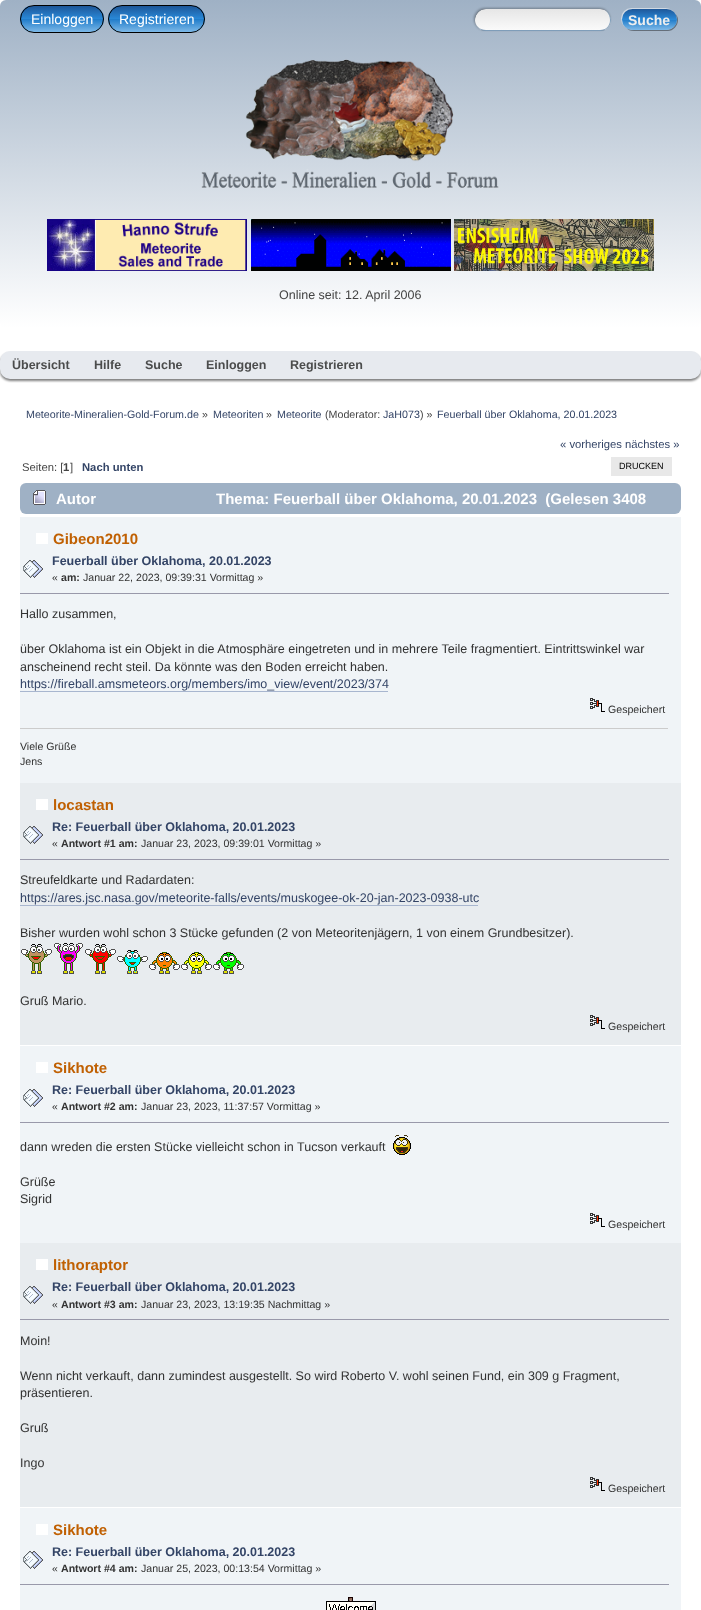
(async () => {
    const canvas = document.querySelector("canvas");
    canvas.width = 701;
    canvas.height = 1610;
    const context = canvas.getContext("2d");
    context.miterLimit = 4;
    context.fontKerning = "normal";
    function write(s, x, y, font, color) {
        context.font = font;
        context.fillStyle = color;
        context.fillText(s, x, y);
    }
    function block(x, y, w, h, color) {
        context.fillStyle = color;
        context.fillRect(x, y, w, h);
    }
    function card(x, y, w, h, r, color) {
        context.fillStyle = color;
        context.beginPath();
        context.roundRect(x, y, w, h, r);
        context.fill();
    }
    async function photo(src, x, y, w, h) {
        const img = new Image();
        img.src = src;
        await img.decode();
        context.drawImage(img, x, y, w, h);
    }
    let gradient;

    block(0, 0, 701, 1610, "rgb(255, 255, 255)");
    gradient = context.createLinearGradient(351, 0, 351, 328);
    gradient.addColorStop(0, "rgb(159, 177, 197)");
    gradient.addColorStop(1, "rgb(255, 255, 255)");
    context.fillStyle = gradient;
    context.beginPath();
    context.roundRect(0, 0, 701, 328, 6);
    context.fill();
    context.save();
    context.beginPath();
    context.roundRect(20, 5, 84, 28, 14);
    context.clip();
    gradient = context.createLinearGradient(62, 6, 62, 32);
    gradient.addColorStop(0, "rgb(30, 87, 153)");
    gradient.addColorStop(0.5, "rgb(41, 137, 216)");
    gradient.addColorStop(0.51, "rgb(32, 124, 202)");
    gradient.addColorStop(1, "rgb(125, 185, 232)");
    context.fillStyle = gradient;
    context.fillRect(20, 6, 84, 26);
    context.restore();
    context.beginPath();
    context.roundRect(20.5, 5.5, 83, 27, 13.5);
    context.strokeStyle = "rgb(0, 0, 0)";
    context.stroke();
    write("Einloggen", 31, 24, "14px Liberation Sans", "rgb(255, 255, 255)");
    context.save();
    context.beginPath();
    context.roundRect(108, 5, 97, 28, 14);
    context.clip();
    gradient = context.createLinearGradient(157, 6, 157, 32);
    gradient.addColorStop(0, "rgb(30, 87, 153)");
    gradient.addColorStop(0.5, "rgb(41, 137, 216)");
    gradient.addColorStop(0.51, "rgb(32, 124, 202)");
    gradient.addColorStop(1, "rgb(125, 185, 232)");
    context.fillStyle = gradient;
    context.fillRect(108, 6, 97, 26);
    context.restore();
    context.beginPath();
    context.roundRect(108.5, 5.5, 96, 27, 13.5);
    context.stroke();
    write("Registrieren", 119, 24, "14px Liberation Sans", "rgb(255, 255, 255)");
    context.fillStyle = "rgba(0, 0, 0, 0.2)";
    context.filter = "blur(0.5px)";
    context.beginPath();
    context.roundRect(475, 9, 136, 22, 11);
    context.fill();
    context.filter = "none";
    context.fillStyle = "rgba(0, 0, 0, 0.3)";
    context.filter = "blur(1px)";
    context.beginPath();
    context.roundRect(474, 8, 136, 22, 11);
    context.fill();
    context.filter = "none";
    context.save();
    context.beginPath();
    context.roundRect(475, 9, 136, 22, 11);
    context.clip();
    gradient = context.createLinearGradient(543, 30, 543, 9);
    gradient.addColorStop(0, "rgb(250, 250, 250)");
    gradient.addColorStop(1, "rgb(230, 230, 230)");
    context.fillStyle = gradient;
    context.beginPath();
    context.roundRect(475, 9, 136, 21, [11, 11, 0, 0]);
    context.fill();
    context.restore();
    context.fillStyle = "rgb(127, 157, 185)";
    context.beginPath();
    context.moveTo(486, 9);
    context.lineTo(600, 9);
    context.bezierCurveTo(606, 9, 611, 14, 611, 20);
    context.bezierCurveTo(611, 26, 606, 31, 600, 31);
    context.lineTo(486, 31);
    context.bezierCurveTo(480, 31, 475, 26, 475, 20);
    context.bezierCurveTo(475, 14, 480, 9, 486, 9);
    context.closePath();
    context.moveTo(486, 9);
    context.lineTo(600, 9);
    context.bezierCurveTo(606, 9, 610, 14, 610, 20);
    context.bezierCurveTo(610, 26, 606, 30, 600, 30);
    context.lineTo(486, 30);
    context.bezierCurveTo(480, 30, 475, 26, 475, 20);
    context.bezierCurveTo(475, 14, 480, 9, 486, 9);
    context.closePath();
    context.fill("evenodd");
    context.fillStyle = "rgba(0, 0, 0, 0.4)";
    context.beginPath();
    context.moveTo(626, 27);
    context.bezierCurveTo(628, 30, 630, 31, 634, 31);
    context.lineTo(668, 31);
    context.bezierCurveTo(673, 31, 678, 26, 678, 20);
    context.bezierCurveTo(678, 17, 677, 15, 674, 13);
    context.bezierCurveTo(676, 14, 677, 17, 677, 20);
    context.bezierCurveTo(677, 25, 672, 30, 666, 30);
    context.lineTo(632, 30);
    context.bezierCurveTo(630, 30, 627, 29, 626, 27);
    context.closePath();
    context.fill();
    context.fillStyle = "rgba(255, 255, 255, 0.5)";
    context.filter = "blur(0.5px)";
    context.beginPath();
    context.roundRect(621, 8, 55, 21, 10.5);
    context.fill();
    context.filter = "none";
    gradient = context.createLinearGradient(650, 9, 650, 30);
    gradient.addColorStop(0, "rgb(30, 87, 153)");
    gradient.addColorStop(0.5, "rgb(41, 137, 216)");
    gradient.addColorStop(0.51, "rgb(32, 124, 202)");
    gradient.addColorStop(1, "rgb(125, 185, 232)");
    context.fillStyle = gradient;
    context.beginPath();
    context.roundRect(622, 9, 55, 21, 10.5);
    context.fill();
    write("Suche", 628, 25, "bold 14px Liberation Sans", "rgb(238, 238, 238)");
    await photo("media/1.png", 201, 59, 298, 129);
    await photo("media/2.png", 47, 219, 200, 52);
    await photo("media/3.png", 251, 219, 200, 52);
    await photo("media/4.png", 454, 219, 200, 52);
    write("Online seit: 12. April 2006", 279, 299, "12.5px Liberation Sans", "rgb(68, 68, 68)");
    context.fillStyle = "rgba(0, 0, 0, 0.5)";
    context.filter = "blur(1px)";
    context.beginPath();
    context.roundRect(0, 353, 701, 28, 10);
    context.fill();
    context.filter = "none";
    card(0, 351, 701, 28, 10, "rgb(231, 234, 239)");
    write("Übersicht", 12, 369, "bold 12.5px Liberation Sans", "rgb(75, 76, 76)");
    write("Hilfe", 94, 369, "bold 12.5px Liberation Sans", "rgb(75, 76, 76)");
    write("Suche", 145, 369, "bold 12.5px Liberation Sans", "rgb(75, 76, 76)");
    write("Einloggen", 206, 369, "bold 12.5px Liberation Sans", "rgb(75, 76, 76)");
    write("Registrieren", 290, 369, "bold 12.5px Liberation Sans", "rgb(75, 76, 76)");
    write("Meteorite-Mineralien-Gold-Forum.de", 26, 418, "10.7px Liberation Sans", "rgb(51, 68, 102)");
    write("»", 202, 418, "10.7px Liberation Sans", "rgb(68, 68, 68)");
    write("Meteoriten", 213, 418, "10.7px Liberation Sans", "rgb(51, 68, 102)");
    write("»", 266, 418, "10.7px Liberation Sans", "rgb(68, 68, 68)");
    write("Meteorite", 277, 418, "10.7px Liberation Sans", "rgb(51, 68, 102)");
    write("(Moderator:", 325, 418, "10.7px Liberation Sans", "rgb(68, 68, 68)");
    write("JaH073", 383, 418, "10.7px Liberation Sans", "rgb(51, 68, 102)");
    write(") »", 420, 418, "10.7px Liberation Sans", "rgb(68, 68, 68)");
    write("Feuerball über Oklahoma, 20.01.2023", 437, 418, "10.7px Liberation Sans", "rgb(51, 68, 102)");
    write("« vorheriges nächstes »", 560, 448, "11.25px Liberation Sans", "rgb(51, 68, 102)");
    write("Seiten: [", 22, 471, "11.25px Liberation Sans", "rgb(68, 68, 68)");
    write("1", 63, 471, "bold 11.25px Liberation Sans", "rgb(68, 68, 68)");
    write("]", 70, 471, "11.25px Liberation Sans", "rgb(68, 68, 68)");
    write("Nach unten", 82, 471, "bold 11.25px Liberation Sans", "rgb(51, 68, 102)");
    block(611, 457, 61, 19, "rgb(232, 232, 232)");
    write("DRUCKEN", 619, 469, "9px Liberation Sans", "rgb(0, 0, 0)");
    card(20, 483, 661, 31, 6, "rgb(159, 177, 197)");
    await photo("media/5.png", 33, 490, 13, 15);
    write("Autor", 56, 504, "bold 15px Liberation Sans", "rgb(255, 255, 255)");
    write("Thema: Feuerball über Oklahoma, 20.01.2023  (Gelesen 3408", 216, 504, "bold 15px Liberation Sans", "rgb(255, 255, 255)");
    block(20, 517, 661, 266, "rgb(240, 244, 247)");
    block(36, 533, 12, 11, "rgb(255, 255, 255)");
    write("Gibeon2010", 53, 544, "bold 15px Liberation Sans", "rgb(192, 96, 2)");
    await photo("media/6.png", 23, 560, 20, 18);
    write("Feuerball über Oklahoma, 20.01.2023", 52, 565, "bold 12.5px Liberation Sans", "rgb(51, 68, 102)");
    write("«", 52, 581, "10.6px Liberation Sans", "rgb(50, 50, 50)");
    write("am:", 61, 581, "bold 10.6px Liberation Sans", "rgb(50, 50, 50)");
    write("Januar 22, 2023, 09:39:31 Vormittag »", 83, 581, "10.6px Liberation Sans", "rgb(50, 50, 50)");
    block(20, 593, 649, 1, "rgb(153, 153, 170)");
    write("Hallo zusammen,", 20, 618, "12.5px Liberation Sans", "rgb(50, 50, 50)");
    write("über Oklahoma ist ein Objekt in die Atmosphäre eingetreten und in mehrere Teile fragmentiert. Eintrittswinkel war", 20, 653, "12.5px Liberation Sans", "rgb(50, 50, 50)");
    write("anscheinend recht steil. Da könnte was den Boden erreicht haben.", 20, 671, "12.5px Liberation Sans", "rgb(50, 50, 50)");
    write("https://fireball.amsmeteors.org/members/imo_view/event/2023/374", 20, 688, "12.5px Liberation Sans", "rgb(51, 68, 102)");
    block(20, 691, 368, 1, "rgb(168, 182, 207)");
    await photo("media/7.png", 590, 698, 15, 14);
    write("Gespeichert", 608, 713, "10.6px Liberation Sans", "rgb(50, 50, 50)");
    block(20, 728, 648, 1, "rgb(204, 204, 204)");
    write("Viele Grüße", 20, 750, "10.6px Liberation Sans", "rgb(50, 50, 50)");
    write("Jens", 20, 765, "10.6px Liberation Sans", "rgb(50, 50, 50)");
    block(20, 783, 661, 262, "rgb(232, 236, 239)");
    block(36, 799, 12, 11, "rgb(255, 255, 255)");
    write("locastan", 53, 810, "bold 15px Liberation Sans", "rgb(192, 96, 2)");
    await photo("media/8.png", 23, 826, 20, 18);
    write("Re: Feuerball über Oklahoma, 20.01.2023", 52, 831, "bold 12.5px Liberation Sans", "rgb(51, 68, 102)");
    write("«", 52, 847, "10.6px Liberation Sans", "rgb(50, 50, 50)");
    write("Antwort #1 am:", 61, 847, "bold 10.6px Liberation Sans", "rgb(50, 50, 50)");
    write("Januar 23, 2023, 09:39:01 Vormittag »", 141, 847, "10.6px Liberation Sans", "rgb(50, 50, 50)");
    block(20, 859, 649, 1, "rgb(153, 153, 170)");
    write("Streufeldkarte und Radardaten:", 20, 884, "12.5px Liberation Sans", "rgb(50, 50, 50)");
    write("https://ares.jsc.nasa.gov/meteorite-falls/events/muskogee-ok-20-jan-2023-0938-utc", 20, 902, "12.5px Liberation Sans", "rgb(51, 68, 102)");
    block(20, 905, 458, 1, "rgb(168, 182, 207)");
    write("Bisher wurden wohl schon 3 Stücke gefunden (2 von Meteoritenjägern, 1 von einem Grundbesitzer).", 20, 937, "12.5px Liberation Sans", "rgb(50, 50, 50)");
    await photo("media/9.png", 21, 943, 223, 31);
    write("Gruß Mario.", 20, 1005, "12.5px Liberation Sans", "rgb(50, 50, 50)");
    await photo("media/10.png", 590, 1015, 15, 14);
    write("Gespeichert", 608, 1030, "10.6px Liberation Sans", "rgb(50, 50, 50)");
    block(20, 1046, 661, 197, "rgb(240, 244, 247)");
    block(36, 1062, 12, 11, "rgb(255, 255, 255)");
    write("Sikhote", 53, 1073, "bold 15px Liberation Sans", "rgb(192, 96, 2)");
    await photo("media/6.png", 23, 1089, 20, 18);
    write("Re: Feuerball über Oklahoma, 20.01.2023", 52, 1094, "bold 12.5px Liberation Sans", "rgb(51, 68, 102)");
    write("«", 52, 1110, "10.6px Liberation Sans", "rgb(50, 50, 50)");
    write("Antwort #2 am:", 61, 1110, "bold 10.6px Liberation Sans", "rgb(50, 50, 50)");
    write("Januar 23, 2023, 11:37:57 Vormittag »", 141, 1110, "10.6px Liberation Sans", "rgb(50, 50, 50)");
    block(20, 1122, 649, 1, "rgb(153, 153, 170)");
    write("dann wreden die ersten Stücke vielleicht schon in Tucson verkauft", 20, 1151, "12.5px Liberation Sans", "rgb(50, 50, 50)");
    await photo("media/11.png", 393, 1135, 18, 20);
    write("Grüße", 20, 1186, "12.5px Liberation Sans", "rgb(50, 50, 50)");
    write("Sigrid", 20, 1203, "12.5px Liberation Sans", "rgb(50, 50, 50)");
    await photo("media/7.png", 590, 1213, 15, 14);
    write("Gespeichert", 608, 1228, "10.6px Liberation Sans", "rgb(50, 50, 50)");
    block(20, 1243, 661, 264, "rgb(232, 236, 239)");
    block(36, 1259, 12, 11, "rgb(255, 255, 255)");
    write("lithoraptor", 53, 1270, "bold 15px Liberation Sans", "rgb(192, 96, 2)");
    await photo("media/8.png", 23, 1286, 20, 18);
    write("Re: Feuerball über Oklahoma, 20.01.2023", 52, 1291, "bold 12.5px Liberation Sans", "rgb(51, 68, 102)");
    write("«", 52, 1308, "10.6px Liberation Sans", "rgb(50, 50, 50)");
    write("Antwort #3 am:", 61, 1308, "bold 10.6px Liberation Sans", "rgb(50, 50, 50)");
    write("Januar 23, 2023, 13:19:35 Nachmittag »", 141, 1308, "10.6px Liberation Sans", "rgb(50, 50, 50)");
    block(20, 1319, 649, 1, "rgb(153, 153, 170)");
    write("Moin!", 20, 1345, "12.5px Liberation Sans", "rgb(50, 50, 50)");
    write("Wenn nicht verkauft, dann zumindest ausgestellt. So wird Roberto V. wohl seinen Fund, ein 309 g Fragment,", 20, 1380, "12.5px Liberation Sans", "rgb(50, 50, 50)");
    write("präsentieren.", 20, 1397, "12.5px Liberation Sans", "rgb(50, 50, 50)");
    write("Gruß", 20, 1432, "12.5px Liberation Sans", "rgb(50, 50, 50)");
    write("Ingo", 20, 1467, "12.5px Liberation Sans", "rgb(50, 50, 50)");
    await photo("media/10.png", 590, 1477, 15, 14);
    write("Gespeichert", 608, 1492, "10.6px Liberation Sans", "rgb(50, 50, 50)");
    block(20, 1508, 661, 102, "rgb(240, 244, 247)");
    block(36, 1524, 12, 11, "rgb(255, 255, 255)");
    write("Sikhote", 53, 1535, "bold 15px Liberation Sans", "rgb(192, 96, 2)");
    await photo("media/6.png", 23, 1551, 20, 18);
    write("Re: Feuerball über Oklahoma, 20.01.2023", 52, 1556, "bold 12.5px Liberation Sans", "rgb(51, 68, 102)");
    write("«", 52, 1572, "10.6px Liberation Sans", "rgb(50, 50, 50)");
    write("Antwort #4 am:", 61, 1572, "bold 10.6px Liberation Sans", "rgb(50, 50, 50)");
    write("Januar 25, 2023, 00:13:54 Vormittag »", 141, 1572, "10.6px Liberation Sans", "rgb(50, 50, 50)");
    block(20, 1584, 649, 1, "rgb(153, 153, 170)");
    await photo("media/12.png", 326, 1597, 50, 13);
})();
